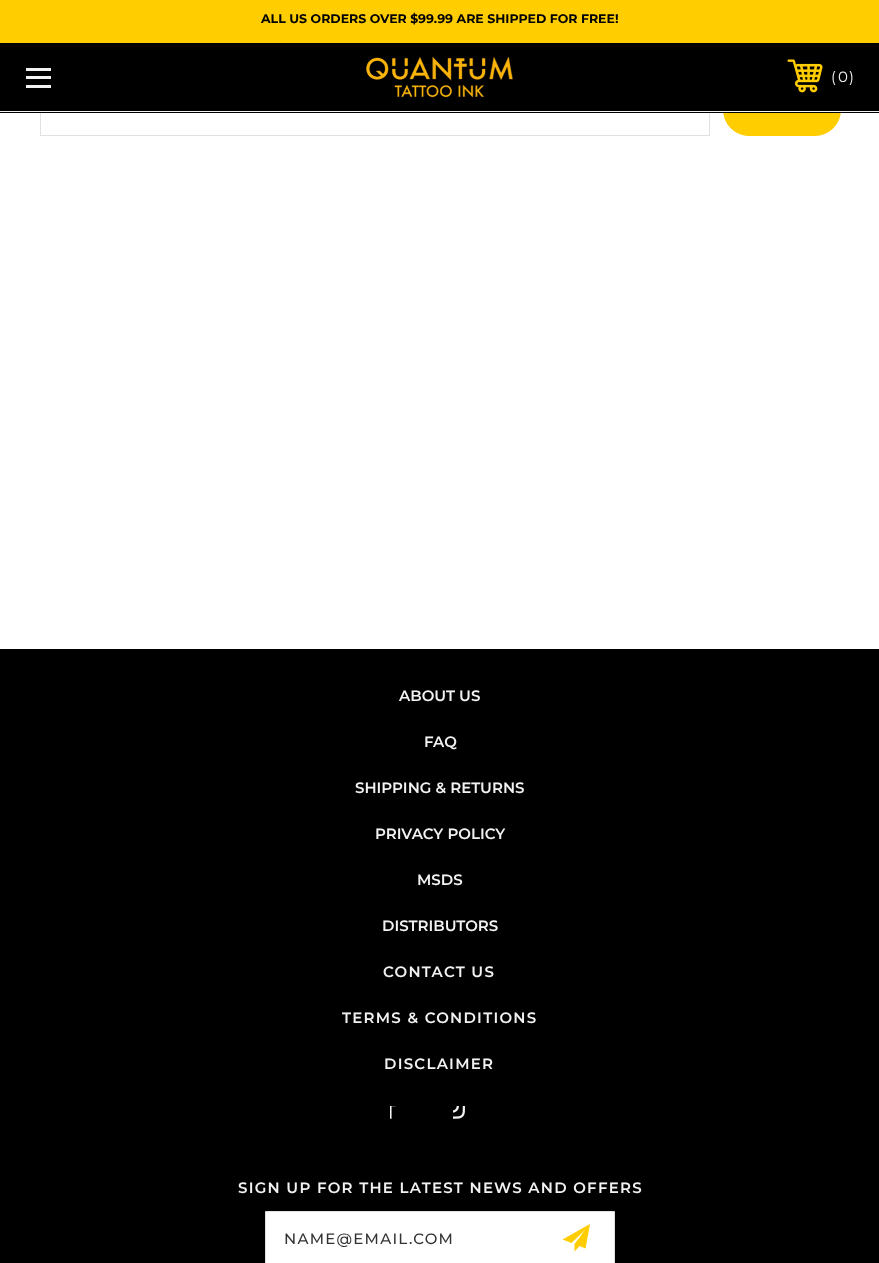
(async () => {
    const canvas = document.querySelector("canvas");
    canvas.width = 879;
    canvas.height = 1263;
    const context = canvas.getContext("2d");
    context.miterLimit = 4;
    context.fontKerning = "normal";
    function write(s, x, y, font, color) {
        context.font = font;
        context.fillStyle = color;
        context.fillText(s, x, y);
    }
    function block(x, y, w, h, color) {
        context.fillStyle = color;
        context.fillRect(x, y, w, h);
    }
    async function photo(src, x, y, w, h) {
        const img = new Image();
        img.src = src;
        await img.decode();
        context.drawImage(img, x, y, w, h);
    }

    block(0, 0, 879, 1263, "rgb(255, 255, 255)");
    block(0, 0, 879, 43, "rgb(255, 205, 0)");
    write("ALL US ORDERS OVER $99.99 ARE SHIPPED FOR FREE!", 261, 23, "bold 12.5px Montserrat", "rgb(0, 0, 0)");
    context.strokeStyle = "rgb(225, 225, 225)";
    context.strokeRect(40.5, 84.5, 669, 51);
    context.fillStyle = "rgb(255, 205, 0)";
    context.beginPath();
    context.roundRect(723.5, 84.5, 117, 51, 25.5);
    context.fill();
    context.strokeStyle = "rgb(255, 205, 0)";
    context.stroke();
    block(0, 43, 879, 70, "rgb(0, 0, 0)");
    block(0, 111, 879, 1, "rgb(242, 242, 242)");
    block(26, 76, 25, 3, "rgb(242, 242, 242)");
    block(26, 68, 25, 3, "rgb(242, 242, 242)");
    block(26, 85, 25, 3, "rgb(242, 242, 242)");
    await photo("media/1.png", 366, 56, 147, 42);
    await photo("media/2.png", 787, 59, 36, 34);
    write("(", 831, 82, "15px Montserrat", "rgb(242, 242, 242)");
    write("0", 838, 82, "15px Montserrat", "rgb(242, 242, 242)");
    write(")", 849, 82, "15px Montserrat", "rgb(242, 242, 242)");
    block(0, 649, 879, 614, "rgb(0, 0, 0)");
    write("ABOUT US", 399, 701, "600 15px Montserrat", "rgb(242, 242, 242)");
    write("FAQ", 424, 747, "600 15px Montserrat", "rgb(242, 242, 242)");
    write("SHIPPING & RETURNS", 355, 793, "600 15px Montserrat", "rgb(242, 242, 242)");
    write("PRIVACY POLICY", 375, 839, "600 15px Montserrat", "rgb(242, 242, 242)");
    write("MSDS", 417, 885, "600 15px Montserrat", "rgb(242, 242, 242)");
    write("DISTRIBUTORS", 382, 931, "600 15px Montserrat", "rgb(242, 242, 242)");
    context.letterSpacing = "1.25px";
    write("CONTACT US", 383, 977, "600 15px Montserrat", "rgb(242, 242, 242)");
    write("TERMS & CONDITIONS", 342, 1023, "600 15px Montserrat", "rgb(242, 242, 242)");
    write("DISCLAIMER", 384, 1069, "600 15px Montserrat", "rgb(242, 242, 242)");
    await photo("media/3.png", 390, 1106, 6, 13);
    await photo("media/4.png", 453, 1106, 12, 13);
    write("SIGN UP FOR THE LATEST NEWS AND OFFERS", 238, 1193, "600 15px Montserrat", "rgb(242, 242, 242)");
    context.fillStyle = "rgb(255, 255, 255)";
    context.beginPath();
    context.rect(265.5, 1211.5, 349, 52);
    context.fill();
    context.strokeStyle = "rgb(225, 225, 225)";
    context.stroke();
    write("NAME@EMAIL.COM", 284, 1244, "500 15px Montserrat", "rgb(51, 51, 51)");
    context.fillStyle = "rgb(255, 205, 0)";
    context.beginPath();
    context.moveTo(590, 1224);
    context.lineTo(562.5, 1239.5);
    context.lineTo(571.5, 1243);
    context.lineTo(585, 1230);
    context.lineTo(574.5, 1244);
    context.lineTo(574.5, 1251.5);
    context.lineTo(579.5, 1246);
    context.lineTo(585.5, 1248.5);
    context.closePath();
    context.fill();
})();
